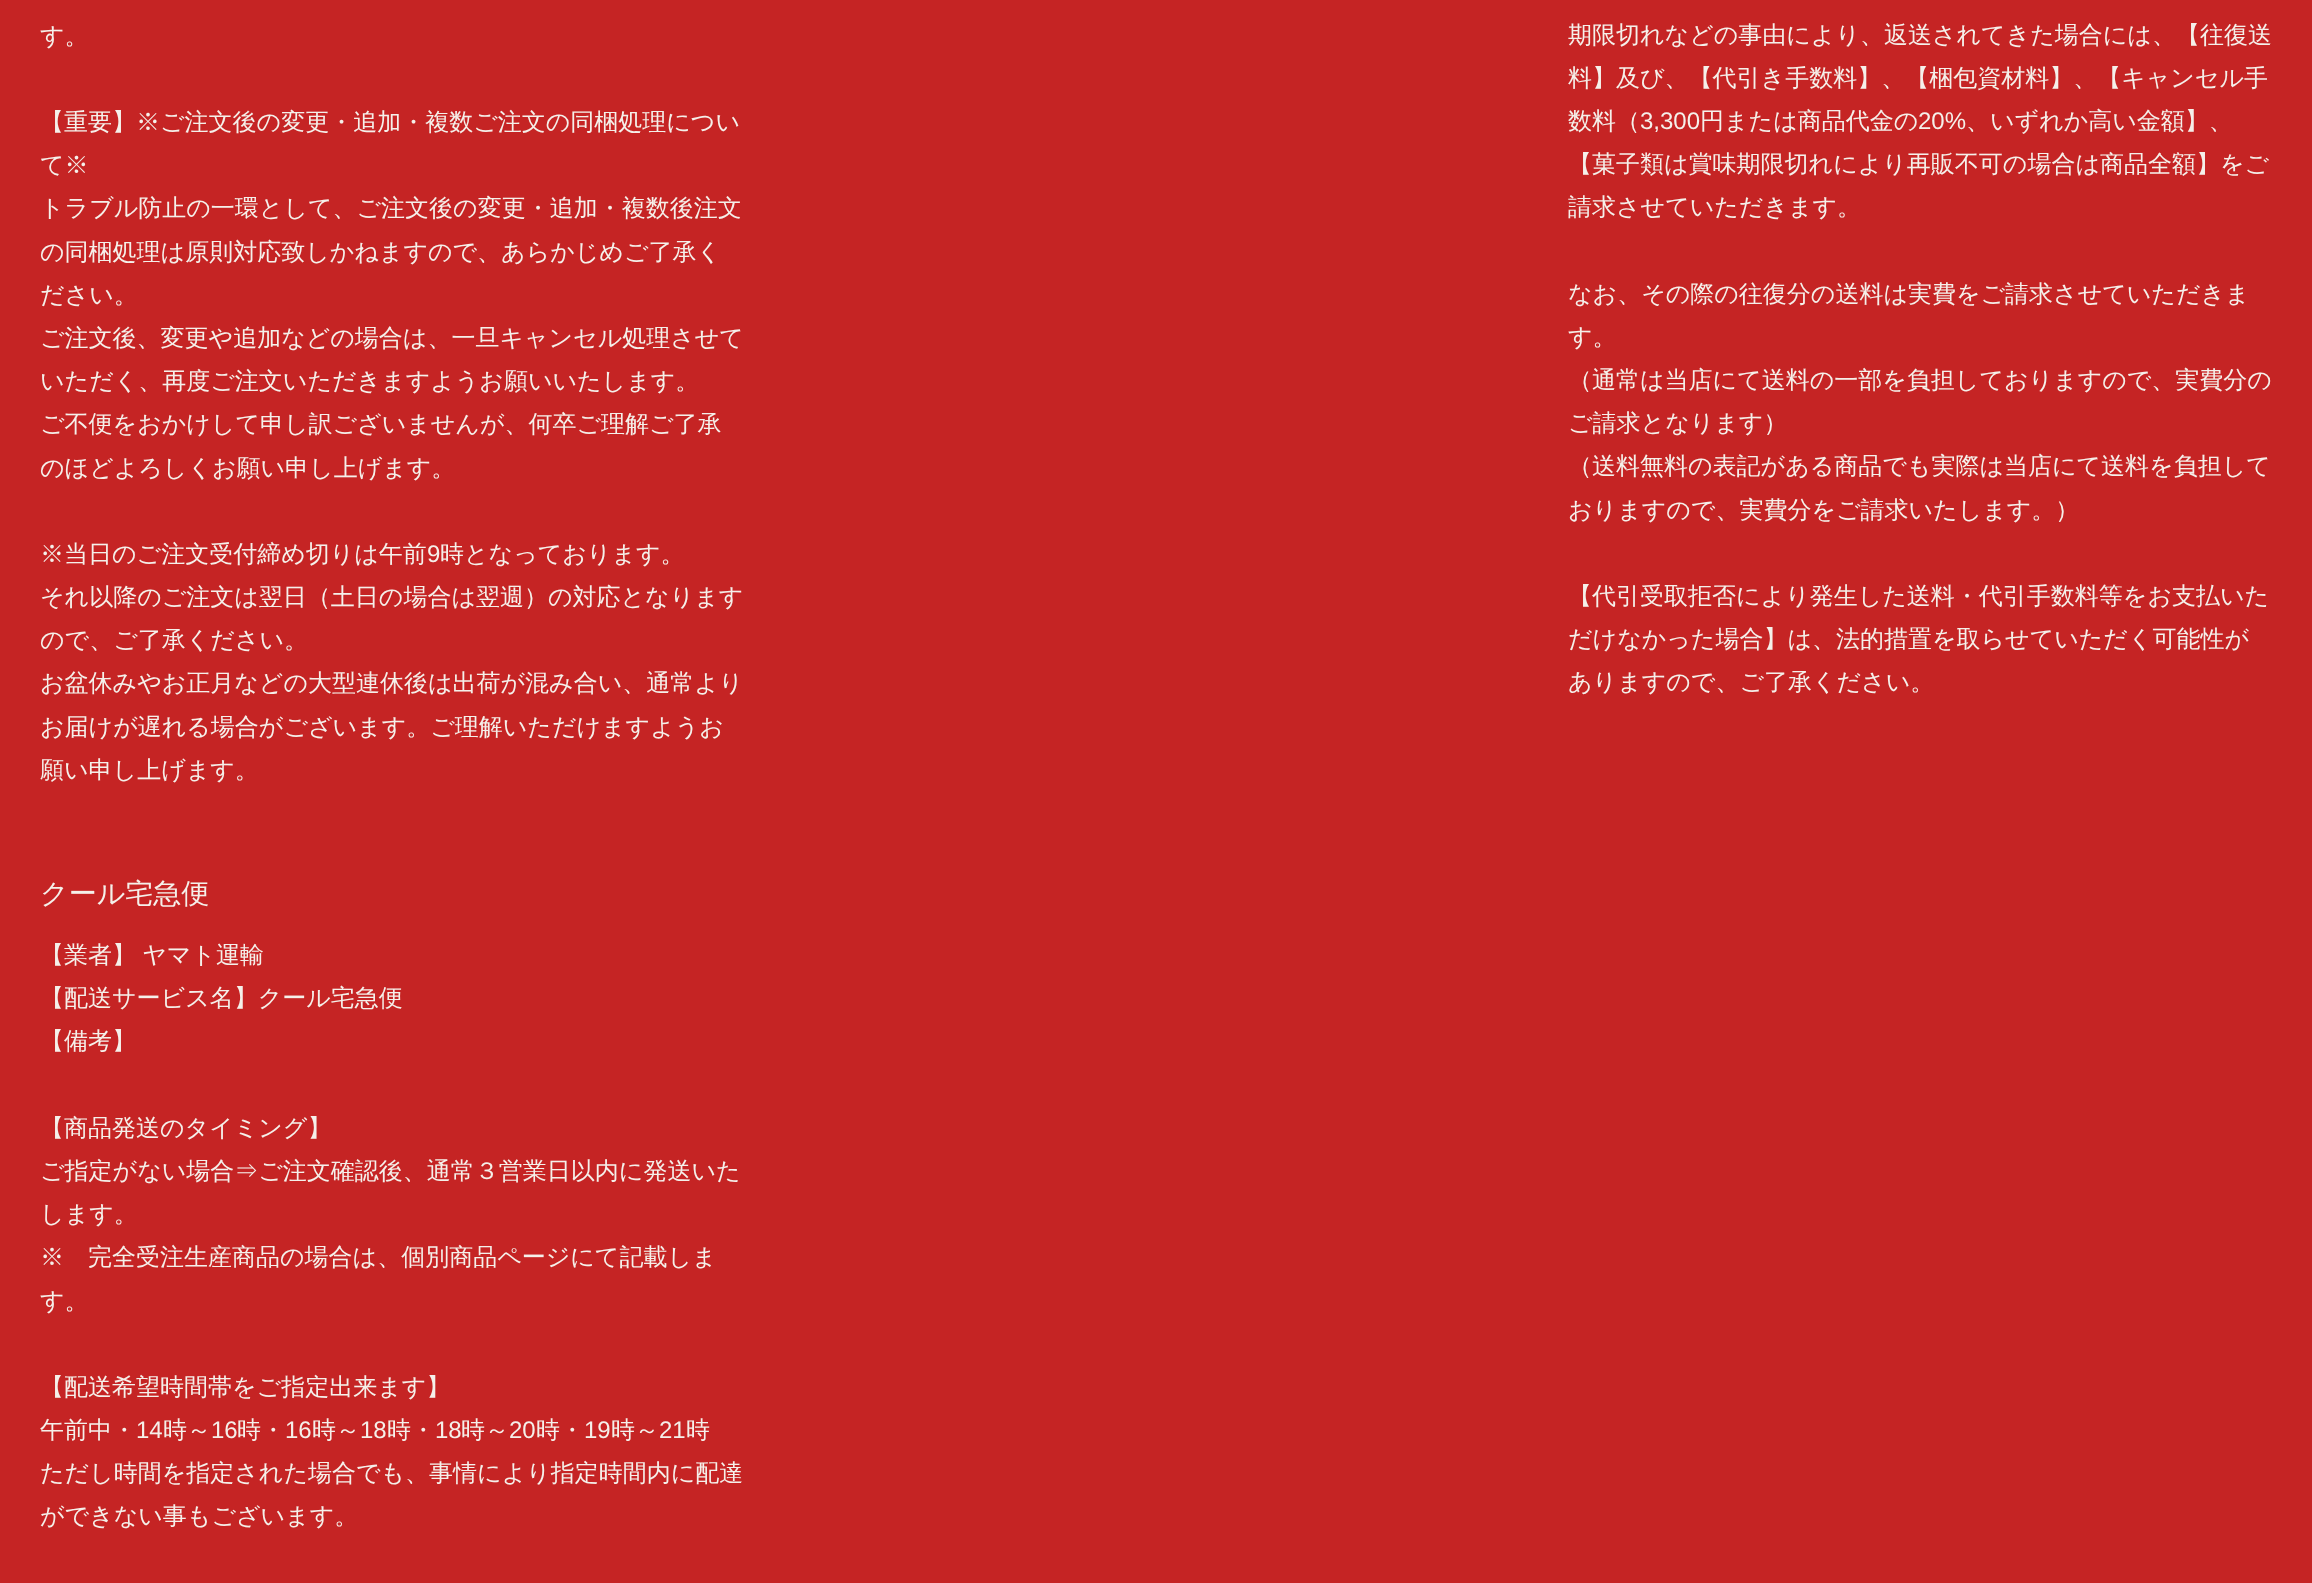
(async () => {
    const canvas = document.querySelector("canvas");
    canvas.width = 2312;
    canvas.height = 1583;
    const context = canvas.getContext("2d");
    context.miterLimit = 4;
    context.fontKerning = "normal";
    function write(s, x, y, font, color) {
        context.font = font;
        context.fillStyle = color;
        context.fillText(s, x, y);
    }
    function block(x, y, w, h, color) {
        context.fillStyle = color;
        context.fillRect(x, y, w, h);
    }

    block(0, 0, 2312, 1583, "rgb(197, 36, 36)");
    write("す。", 40, 44, "500 24px WenQuanYi Zen Hei", "rgb(245, 240, 234)");
    write("【重要】※ご注文後の変更・追加・複数ご注文の同梱処理につい", 40, 130, "500 24px WenQuanYi Zen Hei", "rgb(245, 240, 234)");
    write("て※", 40, 173, "500 24px WenQuanYi Zen Hei", "rgb(245, 240, 234)");
    write("トラブル防止の一環として、ご注文後の変更・追加・複数後注文", 40, 216, "500 24px WenQuanYi Zen Hei", "rgb(245, 240, 234)");
    write("の同梱処理は原則対応致しかねますので、あらかじめご了承く", 40, 260, "500 24px WenQuanYi Zen Hei", "rgb(245, 240, 234)");
    write("ださい。", 40, 303, "500 24px WenQuanYi Zen Hei", "rgb(245, 240, 234)");
    write("ご注文後、変更や追加などの場合は、一旦キャンセル処理させて", 40, 346, "500 24px WenQuanYi Zen Hei", "rgb(245, 240, 234)");
    write("いただく、再度ご注文いただきますようお願いいたします。", 40, 389, "500 24px WenQuanYi Zen Hei", "rgb(245, 240, 234)");
    write("ご不便をおかけして申し訳ございませんが、何卒ご理解ご了承", 40, 432, "500 24px WenQuanYi Zen Hei", "rgb(245, 240, 234)");
    write("のほどよろしくお願い申し上げます。", 40, 476, "500 24px WenQuanYi Zen Hei", "rgb(245, 240, 234)");
    write("※当日のご注文受付締め切りは午前", 40, 562, "500 24px WenQuanYi Zen Hei", "rgb(245, 240, 234)");
    write("9", 427, 562, "24px Liberation Sans", "rgb(245, 240, 234)");
    write("時となっております。", 440, 562, "500 24px WenQuanYi Zen Hei", "rgb(245, 240, 234)");
    write("それ以降のご注文は翌日（土日の場合は翌週）の対応となります", 40, 605, "500 24px WenQuanYi Zen Hei", "rgb(245, 240, 234)");
    write("ので、ご了承ください。", 40, 648, "500 24px WenQuanYi Zen Hei", "rgb(245, 240, 234)");
    write("お盆休みやお正月などの大型連休後は出荷が混み合い、通常より", 40, 691, "500 24px WenQuanYi Zen Hei", "rgb(245, 240, 234)");
    write("お届けが遅れる場合がございます。ご理解いただけますようお", 40, 735, "500 24px WenQuanYi Zen Hei", "rgb(245, 240, 234)");
    write("願い申し上げます。", 40, 778, "500 24px WenQuanYi Zen Hei", "rgb(245, 240, 234)");
    write("クール宅急便", 40, 903, "500 28px WenQuanYi Zen Hei", "rgb(245, 240, 234)");
    context.wordSpacing = "-1px";
    write("【業者】 ヤマト運輸", 40, 963, "500 24px WenQuanYi Zen Hei", "rgb(245, 240, 234)");
    context.wordSpacing = "0px";
    write("【配送サービス名】クール宅急便", 40, 1006, "500 24px WenQuanYi Zen Hei", "rgb(245, 240, 234)");
    write("【備考】", 40, 1049, "500 24px WenQuanYi Zen Hei", "rgb(245, 240, 234)");
    write("【商品発送のタイミング】", 40, 1136, "500 24px WenQuanYi Zen Hei", "rgb(245, 240, 234)");
    write("ご指定がない場合⇒ご注文確認後、通常３営業日以内に発送いた", 40, 1179, "500 24px WenQuanYi Zen Hei", "rgb(245, 240, 234)");
    write("します。", 40, 1222, "500 24px WenQuanYi Zen Hei", "rgb(245, 240, 234)");
    write("※　完全受注生産商品の場合は、個別商品ページにて記載しま", 40, 1265, "500 24px WenQuanYi Zen Hei", "rgb(245, 240, 234)");
    write("す。", 40, 1309, "500 24px WenQuanYi Zen Hei", "rgb(245, 240, 234)");
    write("【配送希望時間帯をご指定出来ます】", 40, 1395, "500 24px WenQuanYi Zen Hei", "rgb(245, 240, 234)");
    write("午前中・", 40, 1438, "500 24px WenQuanYi Zen Hei", "rgb(245, 240, 234)");
    write("14", 136, 1438, "24px Liberation Sans", "rgb(245, 240, 234)");
    write("時～", 163, 1438, "500 24px WenQuanYi Zen Hei", "rgb(245, 240, 234)");
    write("16", 211, 1438, "24px Liberation Sans", "rgb(245, 240, 234)");
    write("時・", 237, 1438, "500 24px WenQuanYi Zen Hei", "rgb(245, 240, 234)");
    write("16", 285, 1438, "24px Liberation Sans", "rgb(245, 240, 234)");
    write("時～", 312, 1438, "500 24px WenQuanYi Zen Hei", "rgb(245, 240, 234)");
    write("18", 360, 1438, "24px Liberation Sans", "rgb(245, 240, 234)");
    write("時・", 387, 1438, "500 24px WenQuanYi Zen Hei", "rgb(245, 240, 234)");
    write("18", 435, 1438, "24px Liberation Sans", "rgb(245, 240, 234)");
    write("時～", 461, 1438, "500 24px WenQuanYi Zen Hei", "rgb(245, 240, 234)");
    write("20", 509, 1438, "24px Liberation Sans", "rgb(245, 240, 234)");
    write("時・", 536, 1438, "500 24px WenQuanYi Zen Hei", "rgb(245, 240, 234)");
    write("19", 584, 1438, "24px Liberation Sans", "rgb(245, 240, 234)");
    write("時～", 611, 1438, "500 24px WenQuanYi Zen Hei", "rgb(245, 240, 234)");
    write("21", 659, 1438, "24px Liberation Sans", "rgb(245, 240, 234)");
    write("時", 686, 1438, "500 24px WenQuanYi Zen Hei", "rgb(245, 240, 234)");
    write("ただし時間を指定された場合でも、事情により指定時間内に配達", 40, 1481, "500 24px WenQuanYi Zen Hei", "rgb(245, 240, 234)");
    write("ができない事もございます。", 40, 1524, "500 24px WenQuanYi Zen Hei", "rgb(245, 240, 234)");
    write("期限切れなどの事由により、返送されてきた場合には、【往復送", 1568, 43, "500 24px WenQuanYi Zen Hei", "rgb(245, 240, 234)");
    write("料】及び、【代引き手数料】、【梱包資材料】、【キャンセル手", 1568, 86, "500 24px WenQuanYi Zen Hei", "rgb(245, 240, 234)");
    write("数料（", 1568, 129, "500 24px WenQuanYi Zen Hei", "rgb(245, 240, 234)");
    write("3,300", 1640, 129, "24px Liberation Sans", "rgb(245, 240, 234)");
    write("円または商品代金の", 1700, 129, "500 24px WenQuanYi Zen Hei", "rgb(245, 240, 234)");
    write("20%", 1918, 129, "24px Liberation Sans", "rgb(245, 240, 234)");
    write("、いずれか高い金額】、", 1966, 129, "500 24px WenQuanYi Zen Hei", "rgb(245, 240, 234)");
    write("【菓子類は賞味期限切れにより再販不可の場合は商品全額】をご", 1568, 172, "500 24px WenQuanYi Zen Hei", "rgb(245, 240, 234)");
    write("請求させていただきます。", 1568, 215, "500 24px WenQuanYi Zen Hei", "rgb(245, 240, 234)");
    write("なお、その際の往復分の送料は実費をご請求させていただきま", 1568, 302, "500 24px WenQuanYi Zen Hei", "rgb(245, 240, 234)");
    write("す。", 1568, 345, "500 24px WenQuanYi Zen Hei", "rgb(245, 240, 234)");
    write("（通常は当店にて送料の一部を負担しておりますので、実費分の", 1568, 388, "500 24px WenQuanYi Zen Hei", "rgb(245, 240, 234)");
    write("ご請求となります）", 1568, 431, "500 24px WenQuanYi Zen Hei", "rgb(245, 240, 234)");
    write("（送料無料の表記がある商品でも実際は当店にて送料を負担して", 1568, 474, "500 24px WenQuanYi Zen Hei", "rgb(245, 240, 234)");
    write("おりますので、実費分をご請求いたします。）", 1568, 518, "500 24px WenQuanYi Zen Hei", "rgb(245, 240, 234)");
    write("【代引受取拒否により発生した送料・代引手数料等をお支払いた", 1568, 604, "500 24px WenQuanYi Zen Hei", "rgb(245, 240, 234)");
    write("だけなかった場合】は、法的措置を取らせていただく可能性が", 1568, 647, "500 24px WenQuanYi Zen Hei", "rgb(245, 240, 234)");
    write("ありますので、ご了承ください。", 1568, 690, "500 24px WenQuanYi Zen Hei", "rgb(245, 240, 234)");
})();
